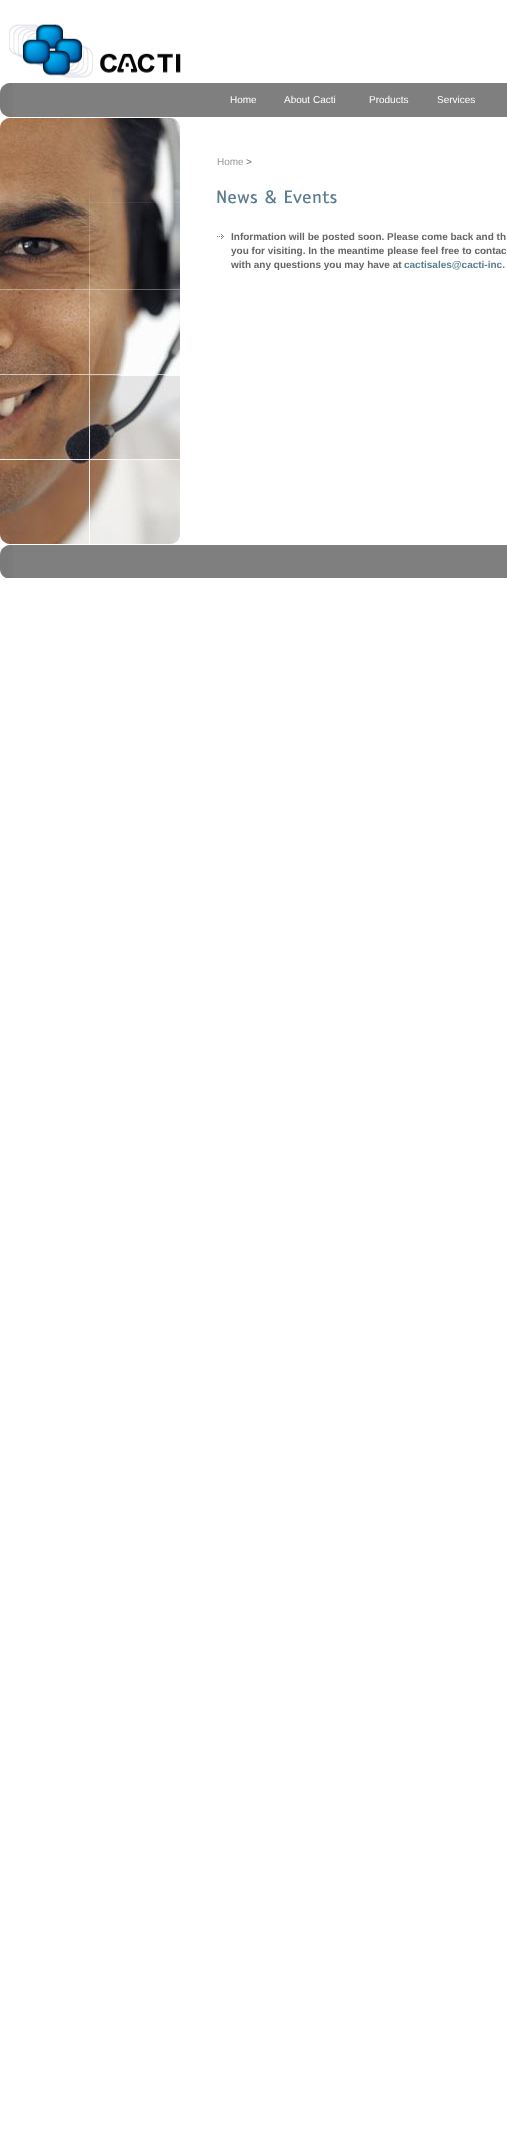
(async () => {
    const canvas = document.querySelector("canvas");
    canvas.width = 507;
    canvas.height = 2143;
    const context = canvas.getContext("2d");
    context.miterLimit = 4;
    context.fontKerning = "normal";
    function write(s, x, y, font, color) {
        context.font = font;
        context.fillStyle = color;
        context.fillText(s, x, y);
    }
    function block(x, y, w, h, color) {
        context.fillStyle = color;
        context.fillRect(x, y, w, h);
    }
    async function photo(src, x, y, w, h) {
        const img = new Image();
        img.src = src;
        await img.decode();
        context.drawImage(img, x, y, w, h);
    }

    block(0, 0, 507, 2143, "rgb(255, 255, 255)");
    await photo("media/1.png", 9, 24, 172, 54);
    block(13, 83, 494, 34, "rgb(127, 127, 127)");
    await photo("media/2.png", 0, 83, 13, 34);
    write("Home", 230, 103, "10px Liberation Sans", "rgb(255, 255, 255)");
    write("About Cacti", 284, 103, "10px Liberation Sans", "rgb(255, 255, 255)");
    write("Products", 369, 103, "10px Liberation Sans", "rgb(255, 255, 255)");
    write("Services", 437, 103, "10px Liberation Sans", "rgb(255, 255, 255)");
    await photo("media/3.png", 0, 118, 180, 426);
    write("Home", 217, 165, "10px Liberation Sans", "rgb(153, 153, 153)");
    write(">", 246, 165, "10px Liberation Sans", "rgb(102, 102, 102)");
    await photo("media/4.png", 217, 190, 120, 14);
    await photo("media/5.png", 217, 234, 7, 5);
    write("Information will be posted soon. Please come back and th", 231, 240, "bold 10px Liberation Sans", "rgb(102, 102, 102)");
    write("you for visiting. In the meantime please feel free to contac", 231, 254, "bold 10px Liberation Sans", "rgb(102, 102, 102)");
    write("with any questions you may have at", 231, 268, "bold 10px Liberation Sans", "rgb(102, 102, 102)");
    write("cactisales@cacti-inc.", 404, 268, "bold 10px Liberation Sans", "rgb(93, 126, 146)");
    block(13, 545, 494, 33, "rgb(127, 127, 127)");
    await photo("media/6.png", 0, 545, 13, 33);
})();
